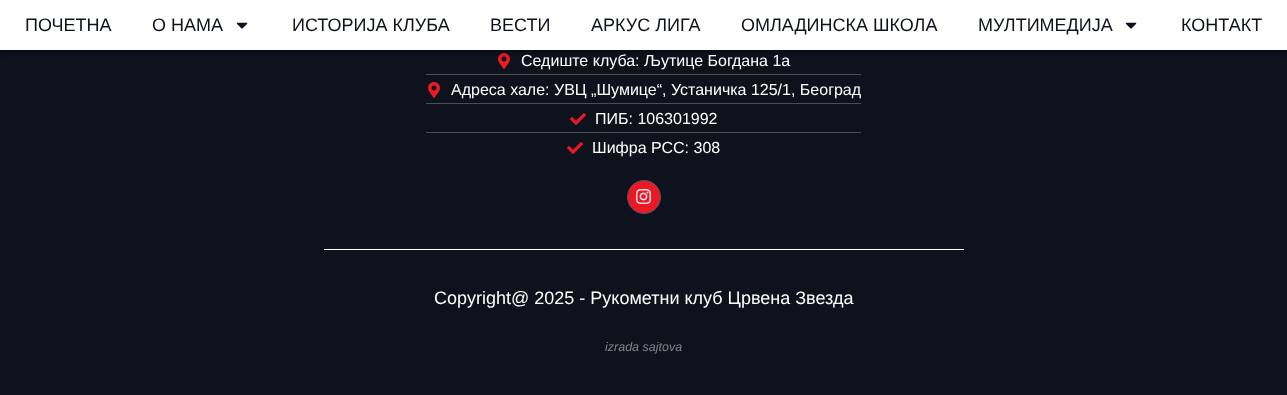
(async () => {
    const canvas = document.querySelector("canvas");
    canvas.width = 1287;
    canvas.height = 395;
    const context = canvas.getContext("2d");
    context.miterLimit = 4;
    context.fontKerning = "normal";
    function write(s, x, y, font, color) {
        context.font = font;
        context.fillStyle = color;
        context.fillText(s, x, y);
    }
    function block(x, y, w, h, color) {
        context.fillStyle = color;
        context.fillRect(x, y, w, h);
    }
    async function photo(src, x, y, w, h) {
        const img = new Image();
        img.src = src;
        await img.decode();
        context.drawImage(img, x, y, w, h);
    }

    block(0, 0, 1287, 395, "rgb(14, 18, 29)");
    await photo("media/2.png", 498, 53, 12, 16);
    context.fillStyle = "rgba(0, 0, 0, 0.5)";
    context.filter = "blur(5px)";
    context.beginPath();
    context.rect(0, 0, 1287, 50);
    context.fill();
    context.filter = "none";
    block(0, 0, 1287, 50, "rgb(255, 255, 255)");
    write("ПОЧЕТНА", 25, 31, "18px Liberation Sans", "rgb(14, 18, 29)");
    write("О НАМА", 152, 31, "18px Liberation Sans", "rgb(14, 18, 29)");
    await photo("media/1.png", 236, 22, 12, 7);
    write("ИСТОРИЈА КЛУБА", 292, 31, "18px Liberation Sans", "rgb(14, 18, 29)");
    write("ВЕСТИ", 490, 31, "18px Liberation Sans", "rgb(14, 18, 29)");
    write("AРКУС ЛИГА", 591, 31, "18px Liberation Sans", "rgb(14, 18, 29)");
    write("ОМЛАДИНСКА ШКОЛА", 741, 31, "18px Liberation Sans", "rgb(14, 18, 29)");
    write("МУЛТИМЕДИЈА", 978, 31, "18px Liberation Sans", "rgb(14, 18, 29)");
    await photo("media/1.png", 1125, 22, 12, 7);
    write("КОНТАКТ", 1181, 31, "18px Liberation Sans", "rgb(14, 18, 29)");
    write("Седиште клуба: Љутице Богдана 1а", 521, 66, "16px Liberation Sans", "rgb(255, 255, 255)");
    block(426, 74, 435, 1, "rgb(77, 77, 84)");
    await photo("media/2.png", 428, 82, 12, 16);
    write("Адреса хале: УВЦ „Шумице“, Устаничка 125/1, Београд", 451, 95, "16px Liberation Sans", "rgb(255, 255, 255)");
    block(426, 103, 435, 1, "rgb(77, 77, 84)");
    await photo("media/3.png", 570, 113, 16, 12);
    write("ПИБ: 106301992", 595, 124, "16px Liberation Sans", "rgb(255, 255, 255)");
    block(426, 132, 435, 1, "rgb(77, 77, 84)");
    await photo("media/3.png", 567, 142, 16, 12);
    write("Шифра РСС: 308", 592, 153, "16px Liberation Sans", "rgb(255, 255, 255)");
    context.fillStyle = "rgb(235, 25, 38)";
    context.beginPath();
    context.arc(644, 197, 16.5, 0, Math.PI * 2);
    context.fill();
    context.strokeStyle = "rgb(77, 87, 101)";
    context.stroke();
    await photo("media/4.png", 636, 189, 15, 15);
    block(324, 249, 640, 1, "rgb(255, 255, 255)");
    write("Copyright@ 2025 - Рукометни клуб Црвена Звезда", 434, 304, "18px Liberation Sans", "rgb(255, 255, 255)");
    write("izrada sajtova", 605, 351, "italic 12.5px Liberation Sans", "rgb(131, 132, 137)");
})();
